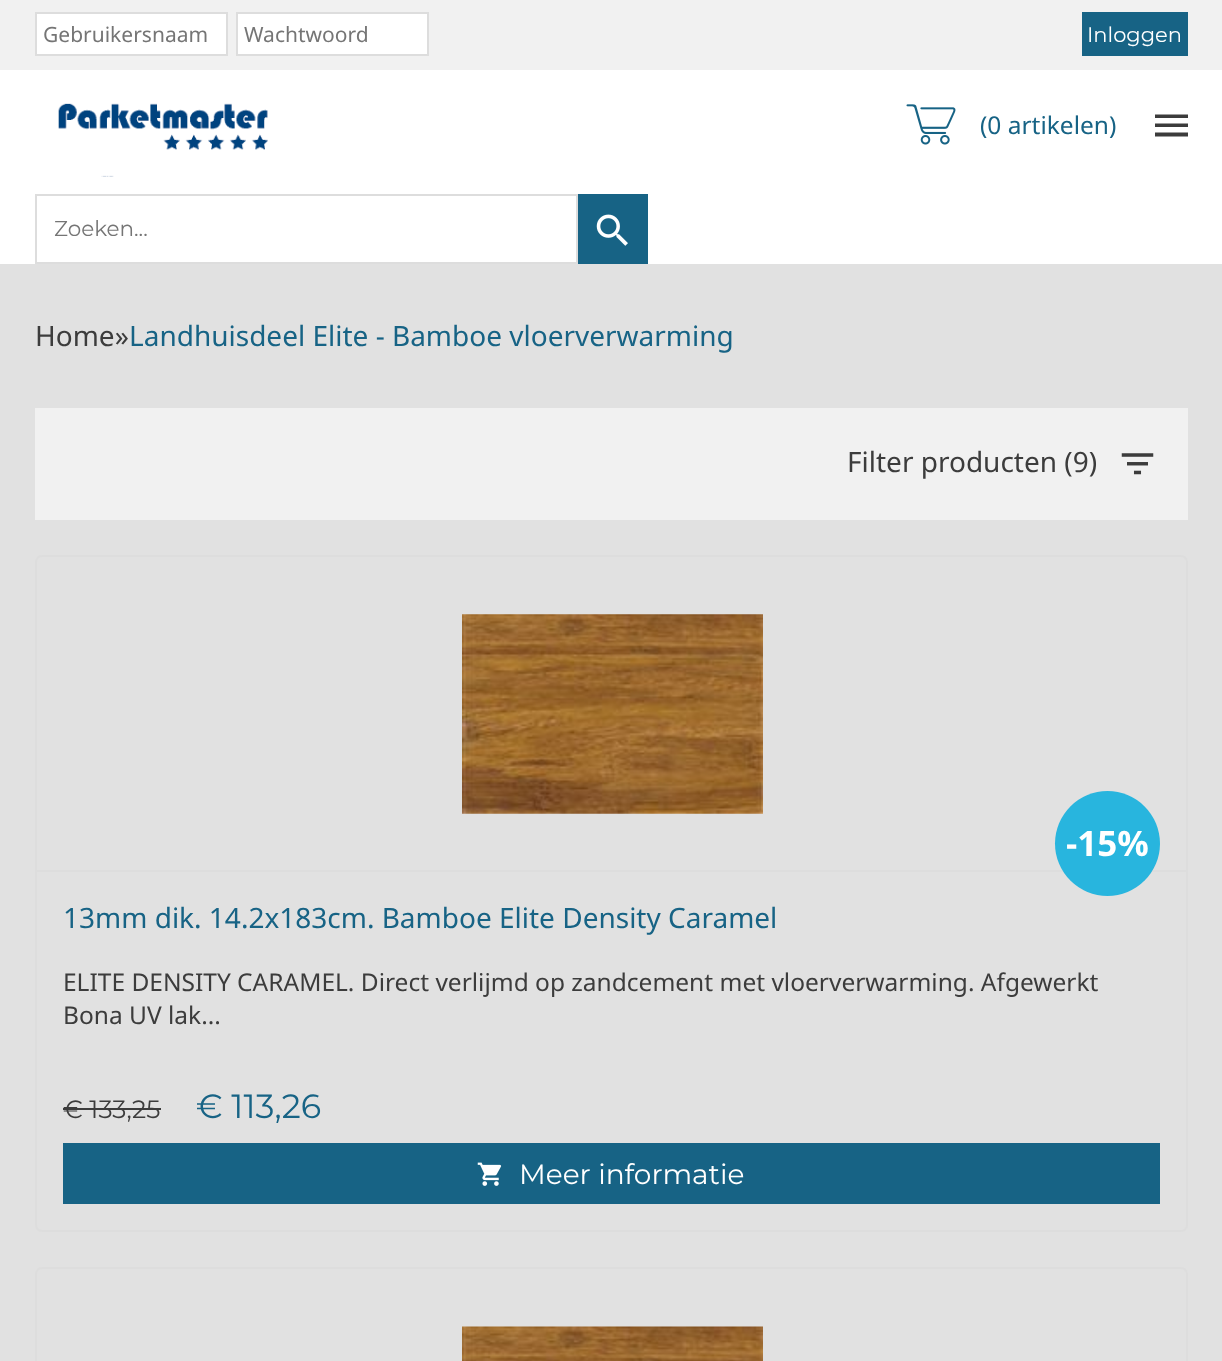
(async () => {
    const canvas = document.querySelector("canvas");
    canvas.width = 1222;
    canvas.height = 1361;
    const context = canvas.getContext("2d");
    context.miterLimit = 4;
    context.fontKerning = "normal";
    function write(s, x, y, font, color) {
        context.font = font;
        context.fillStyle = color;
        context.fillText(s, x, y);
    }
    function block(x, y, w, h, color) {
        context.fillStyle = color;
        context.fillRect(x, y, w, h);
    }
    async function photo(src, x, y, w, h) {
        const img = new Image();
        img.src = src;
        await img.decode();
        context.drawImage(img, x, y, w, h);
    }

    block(0, 0, 1222, 1361, "rgb(225, 225, 225)");
    block(0, 70, 1222, 194, "rgb(255, 255, 255)");
    block(0, 0, 1222, 70, "rgb(241, 241, 241)");
    context.fillStyle = "rgb(255, 255, 255)";
    context.beginPath();
    context.rect(36, 13, 191, 42);
    context.fill();
    context.strokeStyle = "rgb(221, 221, 221)";
    context.lineWidth = 2;
    context.stroke();
    write("Gebruikersnaam", 43, 42, "21px Noto Sans", "rgb(117, 117, 117)");
    context.fillStyle = "rgb(255, 255, 255)";
    context.beginPath();
    context.rect(237, 13, 191, 42);
    context.fill();
    context.stroke();
    write("Wachtwoord", 244, 42, "21px Noto Sans", "rgb(117, 117, 117)");
    block(1082, 12, 106, 44, "rgb(23, 99, 133)");
    write("Inloggen", 1087, 42, "100 21px Montserrat", "rgb(255, 255, 255)");
    await photo("media/1.png", 58, 103, 210, 74);
    await photo("media/2.png", 906, 104, 50, 41);
    write("(0 artikelen)", 980, 134, "24.5px Noto Sans", "rgb(23, 99, 133)");
    context.fillStyle = "rgb(60, 60, 60)";
    context.beginPath();
    context.moveTo(1155, 136.5);
    context.lineTo(1155, 132.5);
    context.lineTo(1188, 132.5);
    context.lineTo(1188, 136.5);
    context.closePath();
    context.moveTo(1155, 127);
    context.lineTo(1155, 123.5);
    context.lineTo(1188, 123.5);
    context.lineTo(1188, 127);
    context.closePath();
    context.moveTo(1155, 114.5);
    context.lineTo(1188, 114.5);
    context.lineTo(1188, 118);
    context.lineTo(1155, 118);
    context.closePath();
    context.fill();
    context.strokeRect(36, 195, 541, 68);
    write("Zoeken...", 54, 236, "100 21.5px Montserrat", "rgb(117, 117, 117)");
    block(578, 194, 70, 70, "rgb(23, 99, 133)");
    await photo("media/3.png", 596, 214, 32, 32);
    write("Home»", 35, 346, "28px Noto Sans", "rgb(60, 60, 60)");
    write("Landhuisdeel Elite - Bamboe vloerverwarming", 129, 346, "28px Noto Sans", "rgb(23, 99, 133)");
    block(35, 408, 1153, 112, "rgb(241, 241, 241)");
    write("Filter producten (9)", 847, 472, "28px Noto Sans", "rgb(60, 60, 60)");
    await photo("media/4.png", 1121, 453, 33, 22);
    context.beginPath();
    context.roundRect(36, 556, 1151, 675, 6);
    context.stroke();
    block(37, 870, 1150, 2, "rgb(221, 221, 221)");
    await photo("media/5.png", 462, 614, 301, 200);
    context.fillStyle = "rgb(40, 181, 222)";
    context.beginPath();
    context.arc(1107.5, 843.5, 52.5, 0, Math.PI * 2);
    context.fill();
    write("-15%", 1066, 856, "bold 35px Open Sans", "rgb(255, 255, 255)");
    write("13mm dik. 14.2x183cm. Bamboe Elite Density Caramel", 63, 928, "28px Noto Sans", "rgb(23, 99, 133)");
    write("ELITE DENSITY CARAMEL. Direct verlijmd op zandcement met vloerverwarming. Afgewerkt", 63, 991, "24.5px Noto Sans", "rgb(60, 60, 60)");
    write("Bona UV lak...", 63, 1024, "24.5px Noto Sans", "rgb(60, 60, 60)");
    write("€ 133,25", 63, 1118, "100 25px Montserrat", "rgb(60, 60, 60)");
    block(63, 1108, 98, 2, "rgb(60, 60, 60)");
    write("€ 113,26", 196, 1118, "100 33.5px Montserrat", "rgb(23, 99, 133)");
    block(63, 1143, 1097, 61, "rgb(23, 99, 133)");
    await photo("media/6.png", 477, 1162, 25, 24);
    write("Meer informatie", 519, 1184, "100 28px Montserrat", "rgb(255, 255, 255)");
    context.beginPath();
    context.roundRect(36, 1268, 1151, 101, 6);
    context.stroke();
    await photo("media/7.png", 462, 1326, 301, 35);
})();
